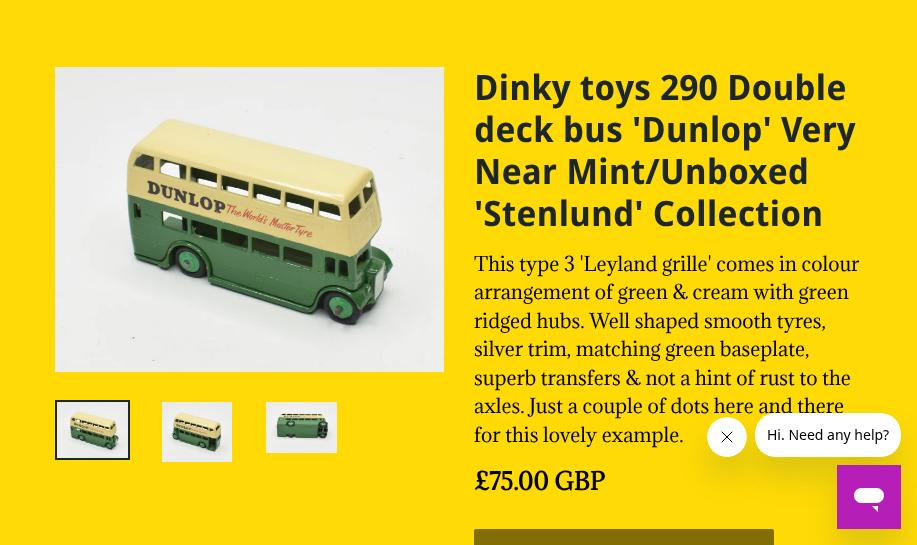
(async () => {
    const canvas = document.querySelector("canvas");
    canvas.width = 917;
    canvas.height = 545;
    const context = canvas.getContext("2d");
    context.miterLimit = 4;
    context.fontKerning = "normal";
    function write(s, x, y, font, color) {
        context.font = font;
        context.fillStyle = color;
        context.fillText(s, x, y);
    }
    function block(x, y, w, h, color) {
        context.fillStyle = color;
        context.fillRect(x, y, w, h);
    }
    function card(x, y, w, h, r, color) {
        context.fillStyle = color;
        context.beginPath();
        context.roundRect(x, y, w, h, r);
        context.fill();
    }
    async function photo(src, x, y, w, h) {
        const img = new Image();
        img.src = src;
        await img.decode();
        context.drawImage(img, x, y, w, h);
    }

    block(0, 0, 917, 545, "rgb(255, 218, 5)");
    await photo("media/1.png", 55, 67, 389, 305);
    context.strokeStyle = "rgb(29, 38, 41)";
    context.lineWidth = 2;
    context.strokeRect(56, 401, 73, 58);
    await photo("media/2.png", 57, 402, 71, 56);
    await photo("media/3.png", 162, 402, 70, 60);
    await photo("media/4.png", 266, 402, 71, 51);
    write("Dinky toys 290 Double", 474, 100, "bold 35px Droid Sans", "rgb(29, 38, 41)");
    write("deck bus 'Dunlop' Very", 474, 142, "bold 35px Droid Sans", "rgb(29, 38, 41)");
    write("Near Mint/Unboxed", 474, 184, "bold 35px Droid Sans", "rgb(29, 38, 41)");
    write("'Stenlund' Collection", 474, 226, "bold 35px Droid Sans", "rgb(29, 38, 41)");
    write("This type 3 'Leyland grille' comes in colour", 474, 271, "19px Adamina", "rgb(2, 2, 3)");
    write("arrangement of green & cream with green", 474, 299, "19px Adamina", "rgb(2, 2, 3)");
    write("ridged hubs. Well shaped smooth tyres,", 474, 328, "19px Adamina", "rgb(2, 2, 3)");
    write("silver trim, matching green baseplate,", 474, 356, "19px Adamina", "rgb(2, 2, 3)");
    write("superb transfers & not a hint of rust to the", 474, 385, "19px Adamina", "rgb(2, 2, 3)");
    write("axles. Just a couple of dots here and there", 474, 413, "19px Adamina", "rgb(2, 2, 3)");
    write("for this lovely example.", 474, 442, "19px Adamina", "rgb(2, 2, 3)");
    write("£75.00 GBP", 474, 490, "bold 23px Adamina", "rgb(2, 2, 3)");
    card(474, 529, 300, 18, 2, "rgb(128, 109, 3)");
    context.fillStyle = "rgba(23, 73, 77, 0.15)";
    context.filter = "blur(15px)";
    context.beginPath();
    context.roundRect(707, 437, 40, 40, 20);
    context.fill();
    context.filter = "none";
    await photo("media/6.png", 707, 417, 40, 40);
    context.filter = "blur(15px)";
    context.beginPath();
    context.roundRect(755, 433, 146, 44, 20);
    context.fill();
    context.filter = "none";
    await photo("media/5.png", 755, 413, 146, 44);
    context.filter = "blur(15px)";
    context.beginPath();
    context.rect(837, 485, 64, 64);
    context.fill();
    context.filter = "none";
    await photo("media/7.png", 837, 465, 64, 64);
})();
